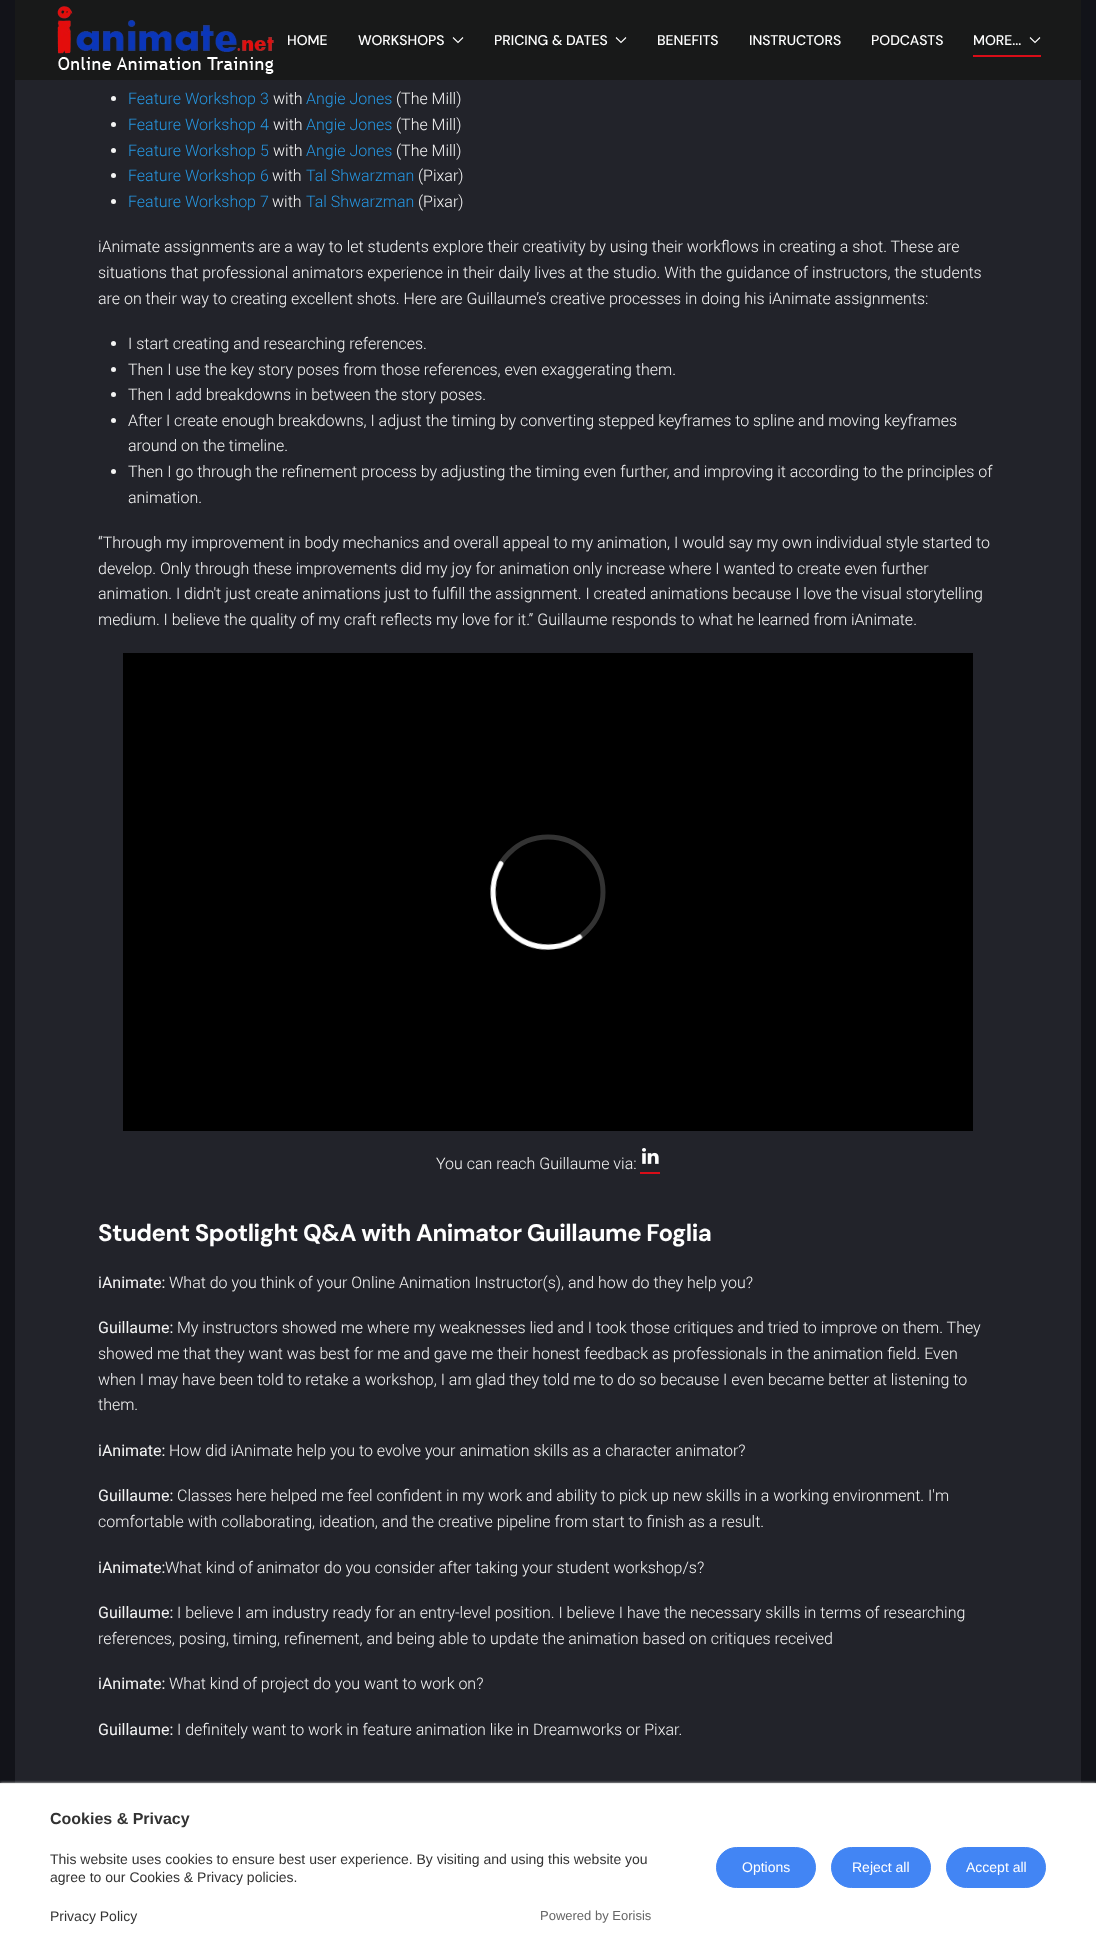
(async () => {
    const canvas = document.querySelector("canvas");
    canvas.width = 1096;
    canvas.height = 1951;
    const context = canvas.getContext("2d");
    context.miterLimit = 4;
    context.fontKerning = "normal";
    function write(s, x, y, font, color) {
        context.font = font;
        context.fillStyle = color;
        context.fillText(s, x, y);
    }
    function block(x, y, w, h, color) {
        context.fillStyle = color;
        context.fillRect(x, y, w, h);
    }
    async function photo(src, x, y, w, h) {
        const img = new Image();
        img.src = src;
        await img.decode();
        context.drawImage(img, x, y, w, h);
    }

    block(0, 0, 1096, 1951, "rgb(18, 19, 25)");
    block(15, 0, 1066, 80, "rgb(24, 25, 25)");
    await photo("media/1.png", 57, 6, 217, 68);
    write("HOME", 287, 45, "500 14px DM Sans", "rgb(255, 255, 255)");
    write("WORKSHOPS", 358, 45, "500 14px DM Sans", "rgb(255, 255, 255)");
    context.beginPath();
    context.moveTo(453, 37.5);
    context.lineTo(458, 42.5);
    context.lineTo(463, 37.5);
    context.strokeStyle = "rgb(255, 255, 255)";
    context.lineWidth = 1.1;
    context.stroke();
    write("PRICING & DATES", 494, 45, "500 14px DM Sans", "rgb(255, 255, 255)");
    context.beginPath();
    context.moveTo(616, 37.5);
    context.lineTo(621, 42.5);
    context.lineTo(626, 37.5);
    context.stroke();
    write("BENEFITS", 657, 45, "500 14px DM Sans", "rgb(255, 255, 255)");
    write("INSTRUCTORS", 749, 45, "500 14px DM Sans", "rgb(255, 255, 255)");
    write("PODCASTS", 871, 45, "500 14px DM Sans", "rgb(255, 255, 255)");
    write("MORE...", 973, 45, "500 14px DM Sans", "rgb(255, 255, 255)");
    context.beginPath();
    context.moveTo(1030, 37.5);
    context.lineTo(1035, 42.5);
    context.lineTo(1040, 37.5);
    context.stroke();
    block(973, 55, 68, 2, "rgb(217, 13, 24)");
    block(15, 80, 1066, 1703, "rgb(34, 35, 42)");
    context.fillStyle = "rgb(244, 244, 244)";
    context.beginPath();
    context.arc(113.5, 98.5, 2.5, 0, Math.PI * 2);
    context.fill();
    write("Feature Workshop 3", 128, 104, "300 16px Roboto", "rgb(38, 150, 225)");
    write("with", 273, 104, "300 16px Roboto", "rgb(244, 244, 244)");
    write("Angie Jones", 306, 104, "300 16px Roboto", "rgb(38, 150, 225)");
    write("(The Mill)", 396, 104, "300 16px Roboto", "rgb(244, 244, 244)");
    context.beginPath();
    context.arc(113.5, 124.5, 2.5, 0, Math.PI * 2);
    context.fill();
    write("Feature Workshop 4", 128, 130, "300 16px Roboto", "rgb(38, 150, 225)");
    write("with", 273, 130, "300 16px Roboto", "rgb(244, 244, 244)");
    write("Angie Jones", 306, 130, "300 16px Roboto", "rgb(38, 150, 225)");
    write("(The Mill)", 396, 130, "300 16px Roboto", "rgb(244, 244, 244)");
    context.beginPath();
    context.arc(113.5, 150.5, 2.5, 0, Math.PI * 2);
    context.fill();
    write("Feature Workshop 5", 128, 156, "300 16px Roboto", "rgb(38, 150, 225)");
    write("with", 273, 156, "300 16px Roboto", "rgb(244, 244, 244)");
    write("Angie Jones", 306, 156, "300 16px Roboto", "rgb(38, 150, 225)");
    write("(The Mill)", 396, 156, "300 16px Roboto", "rgb(244, 244, 244)");
    context.beginPath();
    context.arc(113.5, 175.5, 2.5, 0, Math.PI * 2);
    context.fill();
    write("Feature Workshop 6", 128, 181, "300 16px Roboto", "rgb(38, 150, 225)");
    write("with", 272, 181, "300 16px Roboto", "rgb(244, 244, 244)");
    write("Tal Shwarzman", 306, 181, "300 16px Roboto", "rgb(38, 150, 225)");
    write("(Pixar)", 418, 181, "300 16px Roboto", "rgb(244, 244, 244)");
    context.beginPath();
    context.arc(113.5, 201.5, 2.5, 0, Math.PI * 2);
    context.fill();
    write("Feature Workshop 7", 128, 207, "300 16px Roboto", "rgb(38, 150, 225)");
    write("with", 272, 207, "300 16px Roboto", "rgb(244, 244, 244)");
    write("Tal Shwarzman", 306, 207, "300 16px Roboto", "rgb(38, 150, 225)");
    write("(Pixar)", 418, 207, "300 16px Roboto", "rgb(244, 244, 244)");
    write("iAnimate assignments are a way to let students explore their creativity by using their workflows in creating a shot. These are", 98, 252, "300 16px Roboto", "rgb(244, 244, 244)");
    write("situations that professional animators experience in their daily lives at the studio. With the guidance of instructors, the students", 98, 278, "300 16px Roboto", "rgb(244, 244, 244)");
    write("are on their way to creating excellent shots. Here are Guillaume’s creative processes in doing his iAnimate assignments:", 98, 304, "300 16px Roboto", "rgb(244, 244, 244)");
    context.beginPath();
    context.arc(113.5, 343.5, 2.5, 0, Math.PI * 2);
    context.fill();
    write("I start creating and researching references.", 128, 349, "300 16px Roboto", "rgb(244, 244, 244)");
    context.beginPath();
    context.arc(113.5, 369.5, 2.5, 0, Math.PI * 2);
    context.fill();
    write("Then I use the key story poses from those references, even exaggerating them.", 128, 375, "300 16px Roboto", "rgb(244, 244, 244)");
    context.beginPath();
    context.arc(113.5, 394.5, 2.5, 0, Math.PI * 2);
    context.fill();
    write("Then I add breakdowns in between the story poses.", 128, 400, "300 16px Roboto", "rgb(244, 244, 244)");
    context.beginPath();
    context.arc(113.5, 420.5, 2.5, 0, Math.PI * 2);
    context.fill();
    write("After I create enough breakdowns, I adjust the timing by converting stepped keyframes to spline and moving keyframes", 128, 426, "300 16px Roboto", "rgb(244, 244, 244)");
    write("around on the timeline.", 128, 451, "300 16px Roboto", "rgb(244, 244, 244)");
    context.beginPath();
    context.arc(113.5, 471.5, 2.5, 0, Math.PI * 2);
    context.fill();
    write("Then I go through the refinement process by adjusting the timing even further, and improving it according to the principles of", 128, 477, "300 16px Roboto", "rgb(244, 244, 244)");
    write("animation.", 128, 503, "300 16px Roboto", "rgb(244, 244, 244)");
    write("“Through my improvement in body mechanics and overall appeal to my animation, I would say my own individual style started to", 98, 548, "300 16px Roboto", "rgb(244, 244, 244)");
    write("develop. Only through these improvements did my joy for animation only increase where I wanted to create even further", 98, 574, "300 16px Roboto", "rgb(244, 244, 244)");
    write("animation. I didn't just create animations just to fulfill the assignment. I created animations because I love the visual storytelling", 98, 599, "300 16px Roboto", "rgb(244, 244, 244)");
    write("medium. I believe the quality of my craft reflects my love for it.” Guillaume responds to what he learned from iAnimate.", 98, 625, "300 16px Roboto", "rgb(244, 244, 244)");
    await photo("media/2.png", 123, 653, 850, 478);
    write("You can reach Guillaume via:", 436, 1169, "300 16px Roboto", "rgb(244, 244, 244)");
    block(640, 1172, 20, 2, "rgb(217, 13, 24)");
    await photo("media/3.png", 642, 1148, 17, 16);
    context.letterSpacing = "-0.48px";
    write("Student Spotlight Q&A with Animator Guillaume Foglia", 98, 1241, "bold 24px DM Sans", "rgb(255, 255, 255)");
    context.letterSpacing = "0px";
    write("iAnimate:", 98, 1288, "16px Roboto", "rgb(244, 244, 244)");
    write("What do you think of your Online Animation Instructor(s), and how do they help you?", 169, 1288, "300 16px Roboto", "rgb(244, 244, 244)");
    write("Guillaume:", 98, 1333, "16px Roboto", "rgb(244, 244, 244)");
    write("My instructors showed me where my weaknesses lied and I took those critiques and tried to improve on them. They", 177, 1333, "300 16px Roboto", "rgb(244, 244, 244)");
    write("showed me that they want was best for me and gave me their honest feedback as professionals in the animation field. Even", 98, 1359, "300 16px Roboto", "rgb(244, 244, 244)");
    write("when I may have been told to retake a workshop, I am glad they told me to do so because I even became better at listening to", 98, 1385, "300 16px Roboto", "rgb(244, 244, 244)");
    write("them.", 98, 1410, "300 16px Roboto", "rgb(244, 244, 244)");
    write("iAnimate:", 98, 1456, "16px Roboto", "rgb(244, 244, 244)");
    write("How did iAnimate help you to evolve your animation skills as a character animator?", 169, 1456, "300 16px Roboto", "rgb(244, 244, 244)");
    write("Guillaume:", 98, 1501, "16px Roboto", "rgb(244, 244, 244)");
    write("Classes here helped me feel confident in my work and ability to pick up new skills in a working environment. I'm", 177, 1501, "300 16px Roboto", "rgb(244, 244, 244)");
    write("comfortable with collaborating, ideation, and the creative pipeline from start to finish as a result.", 98, 1527, "300 16px Roboto", "rgb(244, 244, 244)");
    write("iAnimate:", 98, 1573, "16px Roboto", "rgb(244, 244, 244)");
    write("What kind of animator do you consider after taking your student workshop/s?", 165, 1573, "300 16px Roboto", "rgb(244, 244, 244)");
    write("Guillaume:", 98, 1618, "16px Roboto", "rgb(244, 244, 244)");
    write("I believe I am industry ready for an entry-level position. I believe I have the necessary skills in terms of researching", 177, 1618, "300 16px Roboto", "rgb(244, 244, 244)");
    write("references, posing, timing, refinement, and being able to update the animation based on critiques received", 98, 1644, "300 16px Roboto", "rgb(244, 244, 244)");
    write("iAnimate:", 98, 1689, "16px Roboto", "rgb(244, 244, 244)");
    write("What kind of project do you want to work on?", 169, 1689, "300 16px Roboto", "rgb(244, 244, 244)");
    write("Guillaume:", 98, 1735, "16px Roboto", "rgb(244, 244, 244)");
    write("I definitely want to work in feature animation like in Dreamworks or Pixar.", 177, 1735, "300 16px Roboto", "rgb(244, 244, 244)");
    context.fillStyle = "rgb(221, 221, 221)";
    context.filter = "blur(1.5px)";
    context.beginPath();
    context.rect(0, 1783, 1096, 168);
    context.fill();
    context.filter = "none";
    block(0, 1784, 1096, 167, "rgb(255, 255, 255)");
    block(0, 1783, 1096, 1, "rgb(238, 238, 238)");
    write("Cookies & Privacy", 50, 1824, "bold 16px Liberation Sans", "rgb(51, 51, 51)");
    write("This website uses cookies to ensure best user experience. By visiting and using this website you", 50, 1864, "14px Liberation Sans", "rgb(51, 51, 51)");
    write("agree to our Cookies & Privacy policies.", 50, 1882, "14px Liberation Sans", "rgb(51, 51, 51)");
    write("Privacy Policy", 50, 1921, "14px Liberation Sans", "rgb(51, 51, 51)");
    write("Powered by Eorisis", 540, 1920, "13px Liberation Sans", "rgb(102, 102, 102)");
    context.fillStyle = "rgb(66, 133, 244)";
    context.beginPath();
    context.roundRect(716.5, 1847.5, 99, 40, 20);
    context.fill();
    context.strokeStyle = "rgb(66, 133, 244)";
    context.lineWidth = 1;
    context.stroke();
    write("Options", 742, 1872, "14px Liberation Sans", "rgb(255, 255, 255)");
    context.fillStyle = "rgb(66, 133, 244)";
    context.beginPath();
    context.roundRect(831.5, 1847.5, 99, 40, 20);
    context.fill();
    context.stroke();
    write("Reject all", 852, 1872, "14px Liberation Sans", "rgb(255, 255, 255)");
    context.fillStyle = "rgb(66, 133, 244)";
    context.beginPath();
    context.roundRect(946.5, 1847.5, 99, 40, 20);
    context.fill();
    context.stroke();
    write("Accept all", 966, 1872, "14px Liberation Sans", "rgb(255, 255, 255)");
})();
